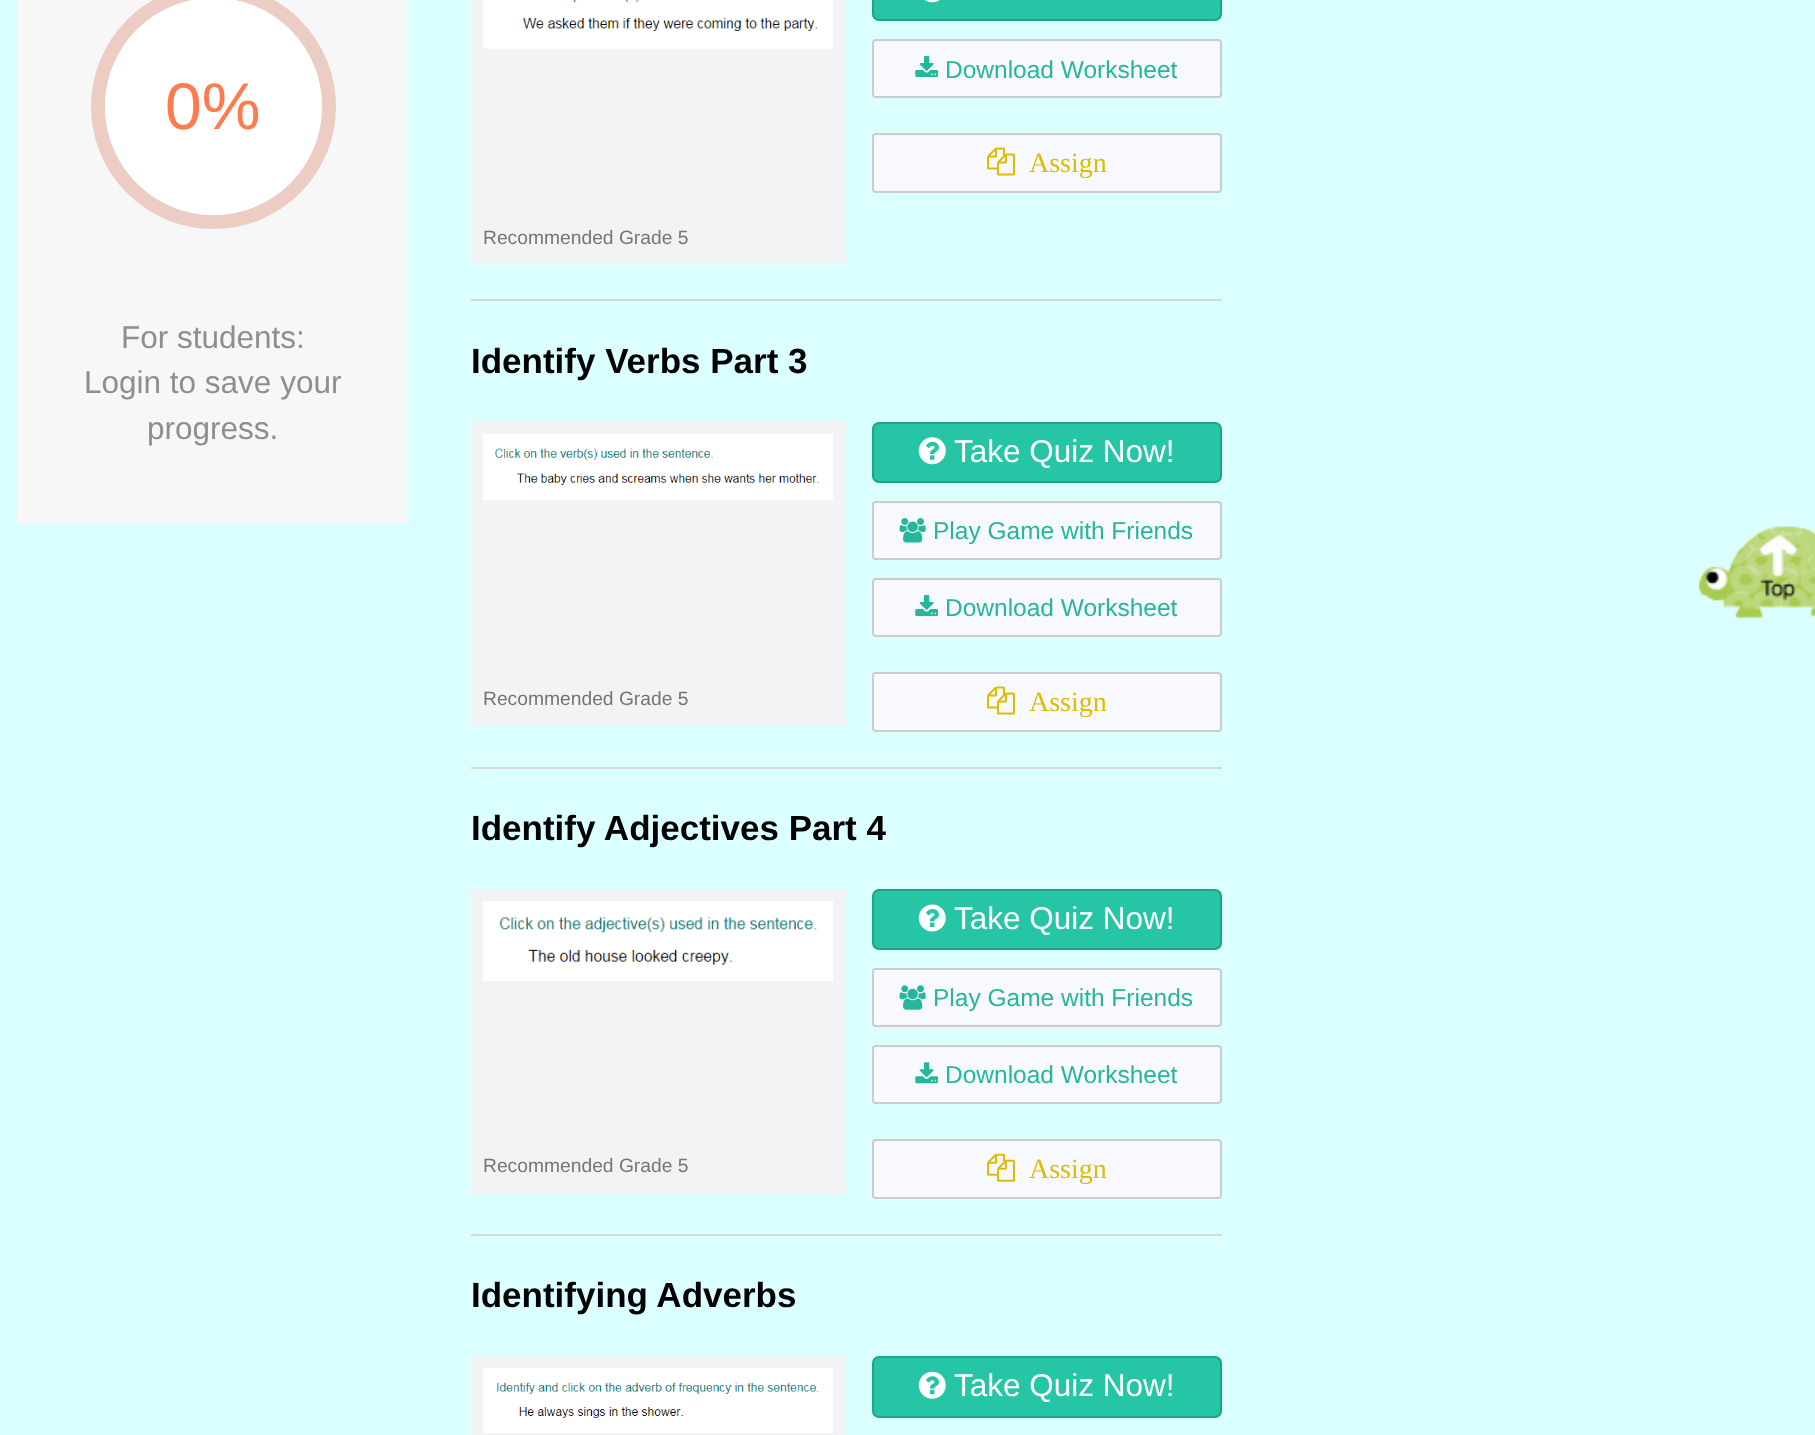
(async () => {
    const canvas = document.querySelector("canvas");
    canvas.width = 1815;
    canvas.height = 1435;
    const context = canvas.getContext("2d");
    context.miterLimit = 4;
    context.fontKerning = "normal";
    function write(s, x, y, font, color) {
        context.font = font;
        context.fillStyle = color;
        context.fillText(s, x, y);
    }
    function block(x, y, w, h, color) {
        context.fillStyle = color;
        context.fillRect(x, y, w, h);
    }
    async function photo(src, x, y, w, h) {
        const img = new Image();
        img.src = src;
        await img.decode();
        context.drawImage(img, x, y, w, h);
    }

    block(0, 0, 1815, 1435, "rgb(219, 255, 255)");
    block(18, 0, 390, 523, "rgb(247, 247, 247)");
    context.beginPath();
    context.arc(213.5, 106.5, 115.5, 0, Math.PI * 2);
    context.strokeStyle = "rgb(236, 205, 195)";
    context.lineWidth = 14;
    context.stroke();
    context.fillStyle = "rgb(255, 255, 255)";
    context.beginPath();
    context.arc(213.5, 106.5, 108.5, 0, Math.PI * 2);
    context.fill();
    write("0%", 165, 129, "66px Liberation Sans", "rgb(255, 122, 77)");
    write("For students:", 121, 348, "31.5px Liberation Sans", "rgb(142, 142, 142)");
    write("Login to save your", 84, 393, "31.5px Liberation Sans", "rgb(142, 142, 142)");
    write("progress.", 147, 439, "31.5px Liberation Sans", "rgb(142, 142, 142)");
    block(471, 299, 751, 2, "rgb(216, 216, 216)");
    context.fillStyle = "rgb(37, 197, 166)";
    context.beginPath();
    context.roundRect(873, -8, 348, 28, 6);
    context.fill();
    context.strokeStyle = "rgb(29, 163, 137)";
    context.lineWidth = 2;
    context.stroke();
    await photo("media/1.png", 925, 0, 15, 3);
    context.fillStyle = "rgb(248, 248, 255)";
    context.beginPath();
    context.roundRect(873, 40, 348, 57, 3);
    context.fill();
    context.strokeStyle = "rgb(204, 204, 204)";
    context.stroke();
    await photo("media/2.png", 915, 56, 23, 21);
    write("Download Worksheet", 945, 78, "24.5px Liberation Sans", "rgb(37, 183, 155)");
    context.fillStyle = "rgb(248, 248, 255)";
    context.beginPath();
    context.roundRect(873, 134, 348, 58, 3);
    context.fill();
    context.stroke();
    await photo("media/3.png", 987, 147, 28, 29);
    write("Assign", 1029, 172, "28px Liberation Serif", "rgb(220, 189, 0)");
    block(471, 0, 374, 264, "rgb(243, 243, 245)");
    await photo("media/4.png", 483, 0, 350, 49);
    write("Recommended Grade 5", 483, 244, "19.25px Liberation Sans", "rgb(117, 117, 119)");
    block(471, 767, 751, 2, "rgb(216, 216, 216)");
    write("Identify Verbs Part 3", 471, 373, "bold 35px Liberation Sans", "rgb(0, 0, 0)");
    block(471, 422, 374, 304, "rgb(243, 243, 245)");
    await photo("media/5.png", 483, 434, 350, 66);
    write("Recommended Grade 5", 483, 705, "19.25px Liberation Sans", "rgb(117, 117, 119)");
    context.fillStyle = "rgb(37, 197, 166)";
    context.beginPath();
    context.roundRect(873, 423, 348, 59, 6);
    context.fill();
    context.strokeStyle = "rgb(29, 163, 137)";
    context.stroke();
    await photo("media/6.png", 918, 437, 28, 28);
    write("Take Quiz Now!", 954, 462, "31.5px Liberation Sans", "rgb(255, 255, 255)");
    context.fillStyle = "rgb(248, 248, 255)";
    context.beginPath();
    context.roundRect(873, 502, 348, 57, 3);
    context.fill();
    context.strokeStyle = "rgb(204, 204, 204)";
    context.stroke();
    await photo("media/7.png", 899, 518, 27, 25);
    write("Play Game with Friends", 933, 539, "24.5px Liberation Sans", "rgb(37, 183, 155)");
    context.fillStyle = "rgb(248, 248, 255)";
    context.beginPath();
    context.roundRect(873, 579, 348, 57, 3);
    context.fill();
    context.stroke();
    await photo("media/2.png", 915, 595, 23, 21);
    write("Download Worksheet", 945, 616, "24.5px Liberation Sans", "rgb(37, 183, 155)");
    context.fillStyle = "rgb(248, 248, 255)";
    context.beginPath();
    context.roundRect(873, 673, 348, 58, 3);
    context.fill();
    context.stroke();
    await photo("media/3.png", 987, 686, 28, 29);
    write("Assign", 1029, 711, "28px Liberation Serif", "rgb(220, 189, 0)");
    block(471, 1234, 751, 2, "rgb(216, 216, 216)");
    write("Identify Adjectives Part 4", 471, 840, "bold 35px Liberation Sans", "rgb(0, 0, 0)");
    block(471, 889, 374, 305, "rgb(243, 243, 245)");
    await photo("media/8.png", 483, 901, 350, 80);
    write("Recommended Grade 5", 483, 1172, "19.25px Liberation Sans", "rgb(117, 117, 119)");
    context.fillStyle = "rgb(37, 197, 166)";
    context.beginPath();
    context.roundRect(873, 890, 348, 59, 6);
    context.fill();
    context.strokeStyle = "rgb(29, 163, 137)";
    context.stroke();
    await photo("media/9.png", 918, 904, 28, 28);
    write("Take Quiz Now!", 954, 929, "31.5px Liberation Sans", "rgb(255, 255, 255)");
    context.fillStyle = "rgb(248, 248, 255)";
    context.beginPath();
    context.roundRect(873, 969, 348, 57, 3);
    context.fill();
    context.strokeStyle = "rgb(204, 204, 204)";
    context.stroke();
    await photo("media/10.png", 899, 985, 27, 25);
    write("Play Game with Friends", 933, 1006, "24.5px Liberation Sans", "rgb(37, 183, 155)");
    context.fillStyle = "rgb(248, 248, 255)";
    context.beginPath();
    context.roundRect(873, 1046, 348, 57, 3);
    context.fill();
    context.stroke();
    await photo("media/11.png", 915, 1062, 23, 22);
    write("Download Worksheet", 945, 1083, "24.5px Liberation Sans", "rgb(37, 183, 155)");
    context.fillStyle = "rgb(248, 248, 255)";
    context.beginPath();
    context.roundRect(873, 1140, 348, 58, 3);
    context.fill();
    context.stroke();
    await photo("media/12.png", 987, 1153, 28, 29);
    write("Assign", 1029, 1178, "28px Liberation Serif", "rgb(220, 189, 0)");
    write("Identifying Adverbs", 471, 1307, "bold 35px Liberation Sans", "rgb(0, 0, 0)");
    block(471, 1356, 374, 79, "rgb(243, 243, 245)");
    await photo("media/13.png", 483, 1368, 350, 65);
    context.fillStyle = "rgb(37, 197, 166)";
    context.beginPath();
    context.roundRect(873, 1357, 348, 60, 6);
    context.fill();
    context.strokeStyle = "rgb(29, 163, 137)";
    context.stroke();
    await photo("media/14.png", 918, 1371, 28, 28);
    write("Take Quiz Now!", 954, 1396, "31.5px Liberation Sans", "rgb(255, 255, 255)");
    await photo("media/15.png", 1699, 525, 116, 94);
})();
